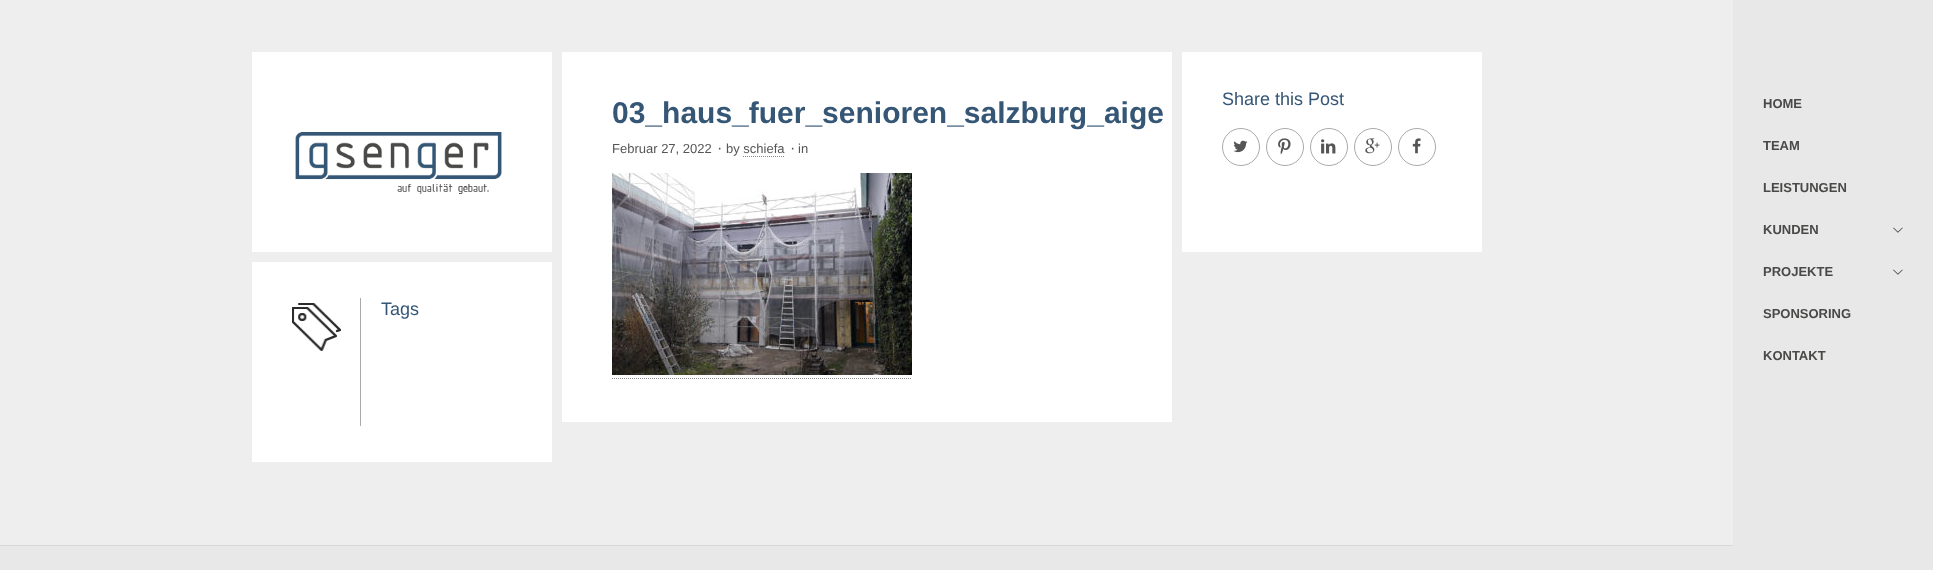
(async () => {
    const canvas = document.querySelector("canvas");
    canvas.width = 1933;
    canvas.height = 570;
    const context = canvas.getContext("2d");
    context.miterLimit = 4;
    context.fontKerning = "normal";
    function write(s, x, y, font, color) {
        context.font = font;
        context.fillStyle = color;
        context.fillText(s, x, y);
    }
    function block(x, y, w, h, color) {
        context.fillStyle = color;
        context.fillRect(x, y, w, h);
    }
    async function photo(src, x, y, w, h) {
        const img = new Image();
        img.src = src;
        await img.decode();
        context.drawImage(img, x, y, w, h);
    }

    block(0, 0, 1933, 570, "rgb(232, 232, 232)");
    block(0, 0, 1733, 545, "rgb(238, 238, 238)");
    block(252, 52, 300, 200, "rgb(255, 255, 255)");
    await photo("media/1.png", 295, 132, 207, 62);
    block(1182, 52, 300, 200, "rgb(255, 255, 255)");
    write("Share this Post", 1222, 105, "18px Liberation Sans", "rgb(53, 86, 117)");
    context.beginPath();
    context.arc(1241, 147, 18.5, 0, Math.PI * 2);
    context.strokeStyle = "rgb(170, 170, 170)";
    context.stroke();
    await photo("media/2.png", 1233, 140, 15, 13);
    context.beginPath();
    context.arc(1285, 147, 18.5, 0, Math.PI * 2);
    context.stroke();
    await photo("media/3.png", 1278, 138, 13, 17);
    context.beginPath();
    context.arc(1329, 147, 18.5, 0, Math.PI * 2);
    context.stroke();
    await photo("media/4.png", 1321, 139, 15, 15);
    context.beginPath();
    context.arc(1373, 147, 18.5, 0, Math.PI * 2);
    context.stroke();
    await photo("media/5.png", 1365, 138, 15, 16);
    context.beginPath();
    context.arc(1417, 147, 18.5, 0, Math.PI * 2);
    context.stroke();
    await photo("media/6.png", 1412, 138, 9, 16);
    block(562, 52, 610, 370, "rgb(255, 255, 255)");
    write("03_haus_fuer_senioren_salzburg_aige", 612, 123, "bold 30px Liberation Sans", "rgb(53, 86, 117)");
    write("Februar 27, 2022", 612, 153, "13px Liberation Sans", "rgb(85, 85, 85)");
    write("·", 717, 153, "16px Liberation Sans", "rgb(85, 85, 85)");
    write("by schiefa", 726, 153, "13px Liberation Sans", "rgb(85, 85, 85)");
    context.beginPath();
    context.moveTo(743, 156.5);
    context.lineTo(784, 156.5);
    context.strokeStyle = "rgb(136, 136, 136)";
    context.setLineDash([1, 1]);
    context.stroke();
    write("·", 790, 153, "16px Liberation Sans", "rgb(85, 85, 85)");
    write("in", 798, 153, "13px Liberation Sans", "rgb(85, 85, 85)");
    await photo("media/7.png", 612, 173, 300, 202);
    context.beginPath();
    context.moveTo(612, 378.5);
    context.lineTo(912, 378.5);
    context.stroke();
    block(252, 262, 300, 200, "rgb(255, 255, 255)");
    await photo("media/8.png", 292, 303, 49, 48);
    block(360, 298, 1, 128, "rgb(170, 170, 170)");
    write("Tags", 381, 315, "18px Liberation Sans", "rgb(53, 86, 117)");
    block(0, 545, 1733, 1, "rgb(216, 216, 216)");
    write("HOME", 1763, 108, "bold 13px Liberation Sans", "rgb(73, 73, 72)");
    write("TEAM", 1763, 150, "bold 13px Liberation Sans", "rgb(73, 73, 72)");
    write("LEISTUNGEN", 1763, 192, "bold 13px Liberation Sans", "rgb(73, 73, 72)");
    write("KUNDEN", 1763, 234, "bold 13px Liberation Sans", "rgb(73, 73, 72)");
    await photo("media/9.png", 1893, 227, 10, 6);
    write("PROJEKTE", 1763, 276, "bold 13px Liberation Sans", "rgb(73, 73, 72)");
    await photo("media/9.png", 1893, 269, 10, 6);
    write("SPONSORING", 1763, 318, "bold 13px Liberation Sans", "rgb(73, 73, 72)");
    write("KONTAKT", 1763, 360, "bold 13px Liberation Sans", "rgb(73, 73, 72)");
})();
